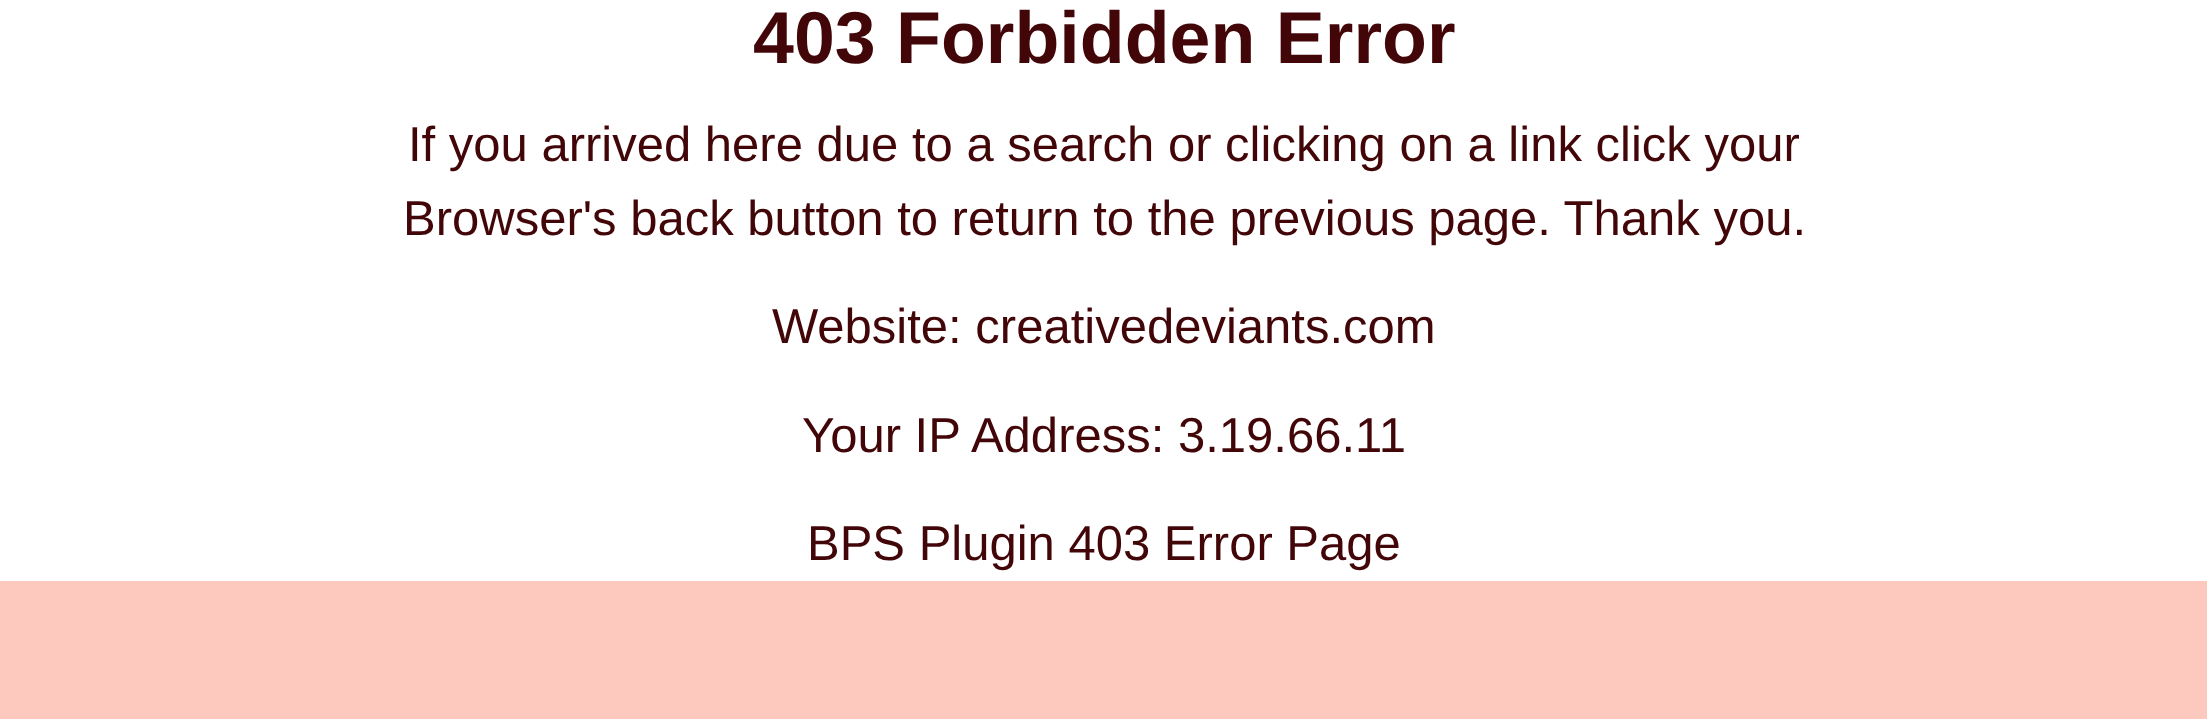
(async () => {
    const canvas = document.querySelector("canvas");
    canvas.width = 2207;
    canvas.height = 719;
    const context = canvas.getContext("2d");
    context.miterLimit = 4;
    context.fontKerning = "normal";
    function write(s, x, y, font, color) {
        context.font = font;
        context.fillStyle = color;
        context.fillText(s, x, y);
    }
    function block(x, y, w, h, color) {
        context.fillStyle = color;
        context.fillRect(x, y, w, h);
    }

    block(0, 0, 2207, 719, "rgb(253, 200, 190)");
    block(0, 0, 2207, 581, "rgb(255, 255, 255)");
    write("403 Forbidden Error", 753, 63, "bold 73.5px Liberation Sans", "rgb(66, 6, 9)");
    write("If you arrived here due to a search or clicking on a link click your", 408, 161, "49px Liberation Sans", "rgb(66, 6, 9)");
    write("Browser's back button to return to the previous page. Thank you.", 403, 235, "49px Liberation Sans", "rgb(66, 6, 9)");
    write("Website: creativedeviants.com", 772, 343, "49px Liberation Sans", "rgb(66, 6, 9)");
    write("Your IP Address: 3.19.66.11", 802, 452, "49px Liberation Sans", "rgb(66, 6, 9)");
    write("BPS Plugin 403 Error Page", 807, 560, "49px Liberation Sans", "rgb(66, 6, 9)");
})();
